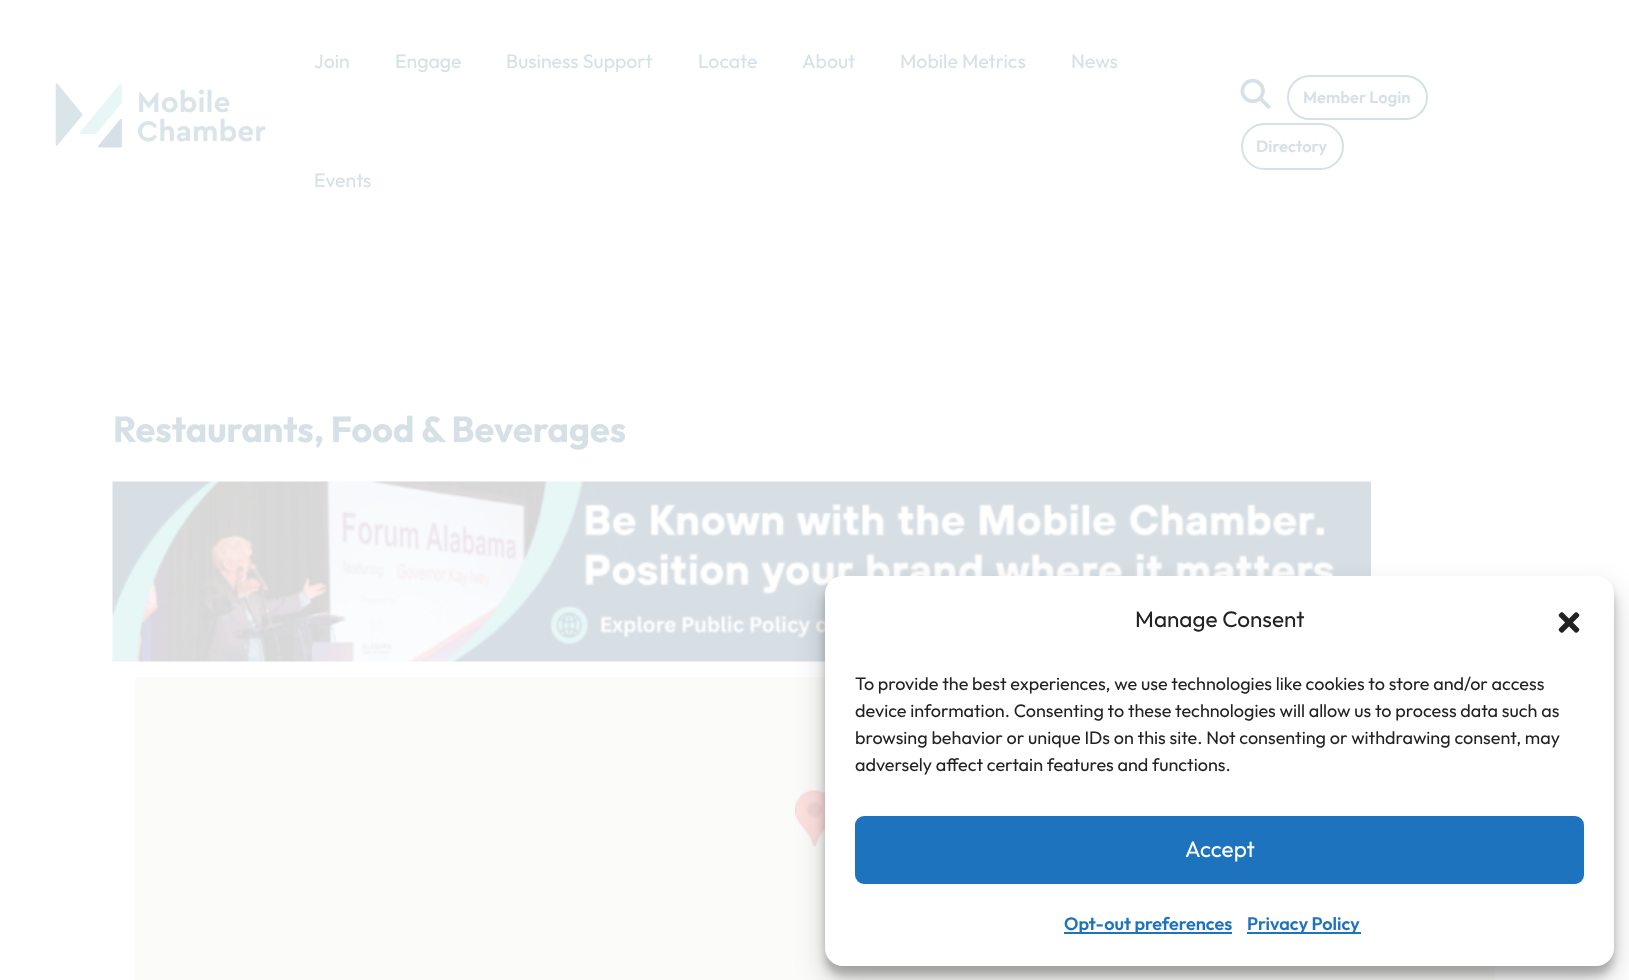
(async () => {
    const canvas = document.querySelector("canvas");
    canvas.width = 1629;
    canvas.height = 980;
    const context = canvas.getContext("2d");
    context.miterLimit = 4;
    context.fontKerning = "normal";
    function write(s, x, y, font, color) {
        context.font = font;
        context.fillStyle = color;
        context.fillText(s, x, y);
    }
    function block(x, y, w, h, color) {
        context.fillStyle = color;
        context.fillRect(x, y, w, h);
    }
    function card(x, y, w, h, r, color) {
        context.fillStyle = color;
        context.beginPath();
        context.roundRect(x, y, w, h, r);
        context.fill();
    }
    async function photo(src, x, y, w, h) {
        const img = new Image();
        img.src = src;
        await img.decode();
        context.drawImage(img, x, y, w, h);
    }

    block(0, 0, 1629, 980, "rgb(255, 255, 255)");
    await photo("media/1.png", 55, 83, 211, 65);
    write("Join", 314, 68, "19.5px Outfit", "rgb(214, 225, 231)");
    write("Engage", 395, 68, "19.5px Outfit", "rgb(214, 225, 231)");
    write("Business Support", 506, 68, "19.5px Outfit", "rgb(214, 225, 231)");
    write("Locate", 698, 68, "19.5px Outfit", "rgb(214, 225, 231)");
    write("About", 802, 68, "19.5px Outfit", "rgb(214, 225, 231)");
    write("Mobile Metrics", 900, 68, "19.5px Outfit", "rgb(214, 225, 231)");
    write("News", 1071, 68, "19.5px Outfit", "rgb(214, 225, 231)");
    write("Events", 314, 187, "19.5px Outfit", "rgb(214, 225, 231)");
    await photo("media/2.png", 1240, 78, 31, 31);
    context.beginPath();
    context.roundRect(1288, 76, 139, 43, 21.5);
    context.strokeStyle = "rgb(214, 225, 231)";
    context.lineWidth = 2;
    context.stroke();
    write("Member Login", 1303, 103, "600 16.5px Outfit", "rgb(214, 225, 231)");
    context.beginPath();
    context.roundRect(1242, 124, 101, 45, 22.5);
    context.stroke();
    write("Directory", 1256, 152, "600 16.5px Outfit", "rgb(214, 225, 231)");
    write("Restaurants, Food & Beverages", 113, 442, "bold 36px Outfit", "rgb(214, 225, 231)");
    await photo("media/3.png", 112, 481, 1259, 181);
    block(135, 677, 1359, 303, "rgb(251, 251, 250)");
    await photo("media/4.png", 795, 790, 30, 56);
    context.fillStyle = "rgba(0, 0, 0, 0.23)";
    context.filter = "blur(4.5px)";
    context.beginPath();
    context.roundRect(825, 585, 789, 390, 18);
    context.fill();
    context.filter = "none";
    context.fillStyle = "rgba(0, 0, 0, 0.19)";
    context.filter = "blur(15px)";
    context.beginPath();
    context.roundRect(825, 591, 789, 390, 18);
    context.fill();
    context.filter = "none";
    card(825, 576, 789, 390, 18, "rgb(255, 255, 255)");
    write("Manage Consent", 1135, 627, "22.5px Outfit", "rgb(34, 34, 34)");
    await photo("media/5.png", 1558, 612, 22, 21);
    write("To provide the best experiences, we use technologies like cookies to store and/or access", 855, 690, "18px Outfit", "rgb(34, 34, 34)");
    write("device information. Consenting to these technologies will allow us to process data such as", 855, 717, "18px Outfit", "rgb(34, 34, 34)");
    write("browsing behavior or unique IDs on this site. Not consenting or withdrawing consent, may", 855, 744, "18px Outfit", "rgb(34, 34, 34)");
    write("adversely affect certain features and functions.", 855, 771, "18px Outfit", "rgb(34, 34, 34)");
    context.fillStyle = "rgb(30, 115, 190)";
    context.beginPath();
    context.roundRect(856, 817, 727, 66, 8);
    context.fill();
    context.strokeStyle = "rgb(30, 115, 190)";
    context.stroke();
    write("Accept", 1185, 857, "22.5px Outfit", "rgb(255, 255, 255)");
    block(1064, 932, 168, 2, "rgb(30, 115, 190)");
    write("Opt-out preferences", 1064, 930, "600 18px Outfit", "rgb(30, 115, 190)");
    block(1247, 932, 114, 2, "rgb(30, 115, 190)");
    write("Privacy Policy", 1247, 930, "600 18px Outfit", "rgb(30, 115, 190)");
})();
